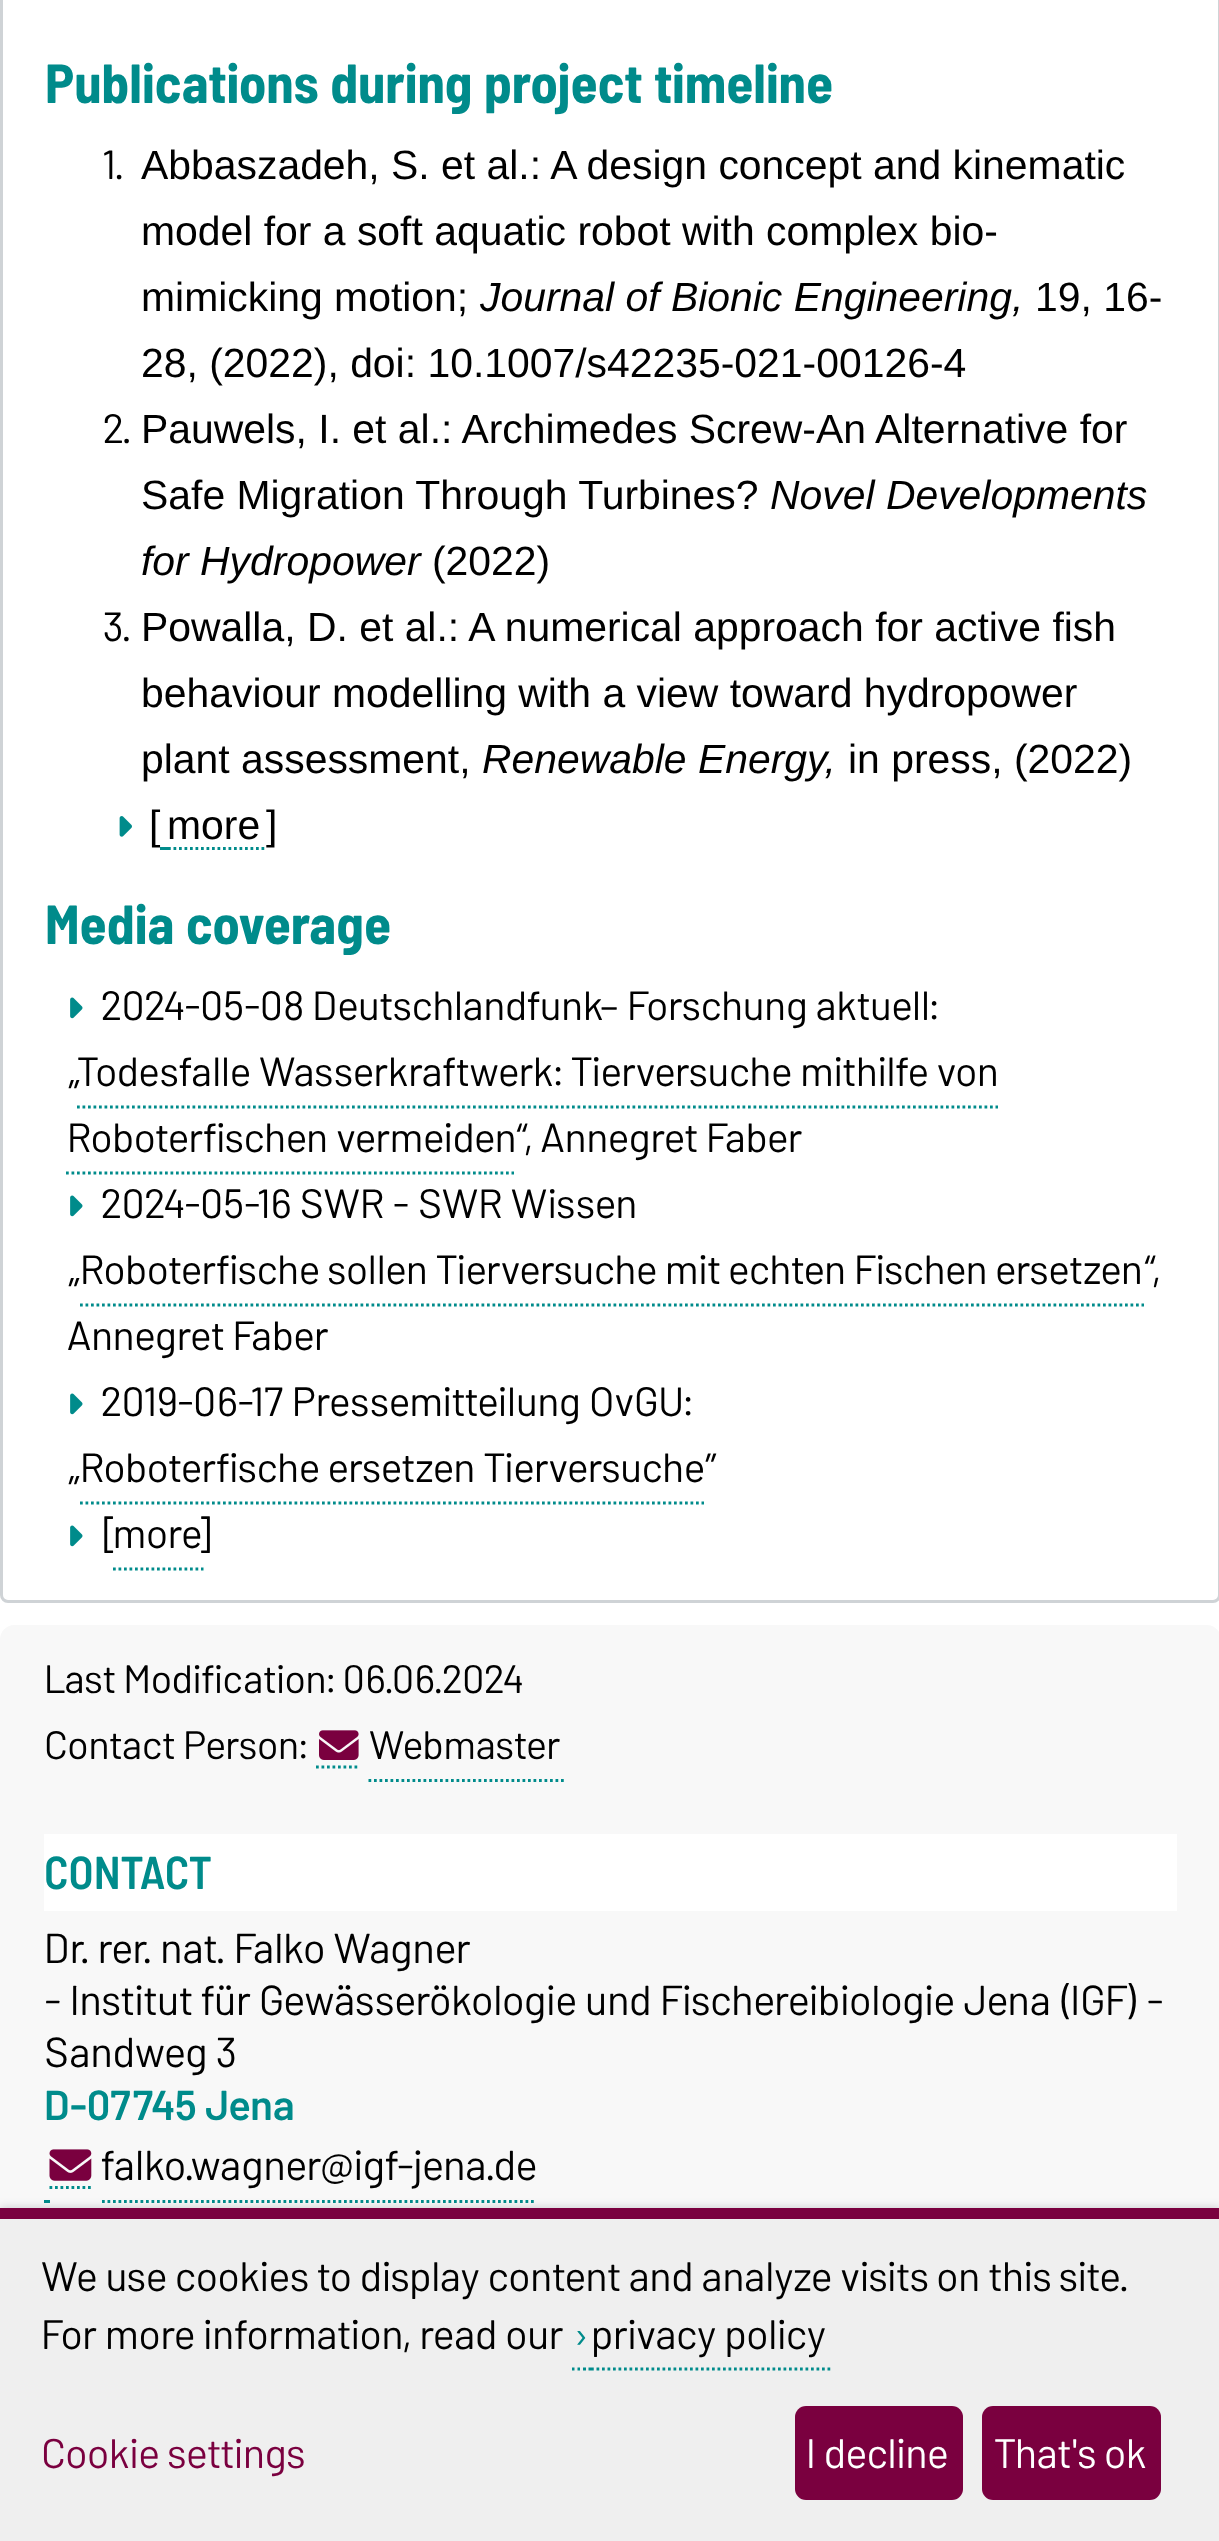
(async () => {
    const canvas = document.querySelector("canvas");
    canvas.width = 1219;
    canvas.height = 2541;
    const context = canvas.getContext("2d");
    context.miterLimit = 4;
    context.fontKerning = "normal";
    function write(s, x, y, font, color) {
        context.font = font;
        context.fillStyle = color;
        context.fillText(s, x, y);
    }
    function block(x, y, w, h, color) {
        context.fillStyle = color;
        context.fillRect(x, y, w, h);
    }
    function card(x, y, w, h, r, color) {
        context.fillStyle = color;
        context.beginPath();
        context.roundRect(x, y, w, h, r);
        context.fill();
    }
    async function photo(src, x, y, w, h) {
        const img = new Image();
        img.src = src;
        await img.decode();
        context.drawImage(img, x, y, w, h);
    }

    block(0, 0, 1219, 2541, "rgb(255, 255, 255)");
    context.beginPath();
    context.roundRect(1.5, -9.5, 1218, 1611, 6.5);
    context.strokeStyle = "rgb(207, 211, 214)";
    context.lineWidth = 3;
    context.stroke();
    context.letterSpacing = "0.45px";
    write("Publications during project timeline", 45, 103, "bold 55px Barlow Semi Condensed", "rgb(0, 139, 139)");
    context.letterSpacing = "0px";
    write("1.", 103, 179, "40.9px Barlow", "rgb(0, 0, 0)");
    write("Abbaszadeh, S. et al.: A design concept and kinematic", 141, 179, "40.9px Liberation Sans", "rgb(0, 0, 0)");
    write("model for a soft aquatic robot with complex bio-", 141, 245, "40.9px Liberation Sans", "rgb(0, 0, 0)");
    write("mimicking motion;", 141, 311, "40.9px Liberation Sans", "rgb(0, 0, 0)");
    write("Journal of Bionic Engineering,", 480, 311, "italic 40.9px Liberation Sans", "rgb(0, 0, 0)");
    write("19, 16-", 1035, 311, "40.9px Liberation Sans", "rgb(0, 0, 0)");
    write("28, (2022), doi: 10.1007/s42235-021-00126-4", 141, 377, "40.9px Liberation Sans", "rgb(0, 0, 0)");
    write("2.", 103, 443, "40.9px Barlow", "rgb(0, 0, 0)");
    write("Pauwels, I. et al.: Archimedes Screw-An Alternative for", 141, 443, "40.9px Liberation Sans", "rgb(0, 0, 0)");
    write("Safe Migration Through Turbines?", 141, 509, "40.9px Liberation Sans", "rgb(0, 0, 0)");
    write("Novel Developments", 770, 509, "italic 40.9px Liberation Sans", "rgb(0, 0, 0)");
    write("for Hydropower", 141, 575, "italic 40.9px Liberation Sans", "rgb(0, 0, 0)");
    write("(2022)", 432, 575, "40.9px Liberation Sans", "rgb(0, 0, 0)");
    write("3.", 103, 641, "40.9px Barlow", "rgb(0, 0, 0)");
    write("Powalla, D. et al.: A numerical approach for active fish", 141, 641, "40.9px Liberation Sans", "rgb(0, 0, 0)");
    write("behaviour modelling with a view toward hydropower", 141, 707, "40.9px Liberation Sans", "rgb(0, 0, 0)");
    write("plant assessment,", 141, 773, "40.9px Liberation Sans", "rgb(0, 0, 0)");
    write("Renewable Energy,", 482, 773, "italic 40.9px Liberation Sans", "rgb(0, 0, 0)");
    write("in press, (2022)", 848, 773, "40.9px Liberation Sans", "rgb(0, 0, 0)");
    await photo("media/1.png", 119, 816, 13, 21);
    write("[", 149, 839, "40.9px Liberation Sans", "rgb(0, 0, 0)");
    block(160, 847, 8, 3, "rgb(0, 139, 139)");
    write("more", 167, 839, "40.9px Liberation Sans", "rgb(0, 0, 0)");
    context.beginPath();
    context.moveTo(168, 848.5);
    context.lineTo(267, 848.5);
    context.strokeStyle = "rgb(0, 139, 139)";
    context.lineWidth = 2.8;
    context.setLineDash([2.75, 2.75]);
    context.stroke();
    write("]", 266, 839, "40.9px Liberation Sans", "rgb(0, 0, 0)");
    context.letterSpacing = "0.45px";
    write("Media coverage", 45, 944, "bold 55px Barlow Semi Condensed", "rgb(0, 139, 139)");
    await photo("media/2.png", 70, 997, 13, 22);
    context.letterSpacing = "0px";
    write("2024-05-08 Deutschlandfunk– Forschung aktuell:", 101, 1020, "40.9px Barlow", "rgb(0, 0, 0)");
    write("„", 67, 1086, "40.9px Barlow", "rgb(0, 0, 0)");
    write("Todesfalle Wasserkraftwerk: Tierversuche mithilfe von", 77, 1086, "40.9px Barlow", "rgb(0, 0, 0)");
    write("Roboterfischen vermeiden", 67, 1152, "40.9px Barlow", "rgb(0, 0, 0)");
    context.beginPath();
    context.moveTo(77, 1107);
    context.lineTo(998, 1107);
    context.stroke();
    context.beginPath();
    context.moveTo(66, 1173);
    context.lineTo(514, 1173);
    context.stroke();
    write("“, Annegret Faber", 516, 1152, "40.9px Barlow", "rgb(0, 0, 0)");
    await photo("media/2.png", 70, 1195, 13, 22);
    write("2024-05-16 SWR - SWR Wissen", 101, 1218, "40.9px Barlow", "rgb(0, 0, 0)");
    write("„", 67, 1284, "40.9px Barlow", "rgb(0, 0, 0)");
    context.wordSpacing = "-0.25px";
    write("Roboterfische sollen Tierversuche mit echten Fischen ersetzen", 80, 1284, "40.9px Barlow", "rgb(0, 0, 0)");
    context.beginPath();
    context.moveTo(80, 1305);
    context.lineTo(1144, 1305);
    context.stroke();
    context.wordSpacing = "0px";
    write("“,", 1144, 1284, "40.9px Barlow", "rgb(0, 0, 0)");
    write("Annegret Faber", 67, 1350, "40.9px Barlow", "rgb(0, 0, 0)");
    await photo("media/2.png", 70, 1393, 13, 22);
    write("2019-06-17 Pressemitteilung OvGU:", 101, 1416, "40.9px Barlow", "rgb(0, 0, 0)");
    write("Roboterfische ersetzen Tierversuche", 80, 1482, "40.9px Barlow", "rgb(0, 0, 0)");
    context.beginPath();
    context.moveTo(80, 1503);
    context.lineTo(704, 1503);
    context.stroke();
    write("”", 705, 1482, "40.9px Barlow", "rgb(0, 0, 0)");
    write("„", 67, 1482, "40.9px Barlow", "rgb(0, 0, 0)");
    await photo("media/2.png", 70, 1525, 13, 22);
    write("[more]", 101, 1548, "40.9px Barlow", "rgb(0, 0, 0)");
    context.beginPath();
    context.moveTo(113, 1569);
    context.lineTo(203.5, 1569);
    context.stroke();
    context.fillStyle = "rgb(248, 248, 248)";
    context.beginPath();
    context.moveTo(14, 1625);
    context.lineTo(1207, 1625);
    context.bezierCurveTo(1214.5, 1625, 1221, 1631.5, 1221, 1639);
    context.lineTo(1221, 1801);
    context.lineTo(0, 1801);
    context.lineTo(0, 1639);
    context.bezierCurveTo(0, 1631.5, 6.5, 1625, 14, 1625);
    context.closePath();
    context.fill();
    write("Last Modification: 06.06.2024", 44, 1693, "39.6px Barlow", "rgb(0, 0, 0)");
    write("Contact Person:", 44, 1759, "39.6px Barlow", "rgb(0, 0, 0)");
    context.beginPath();
    context.moveTo(316, 1767);
    context.lineTo(357.5, 1767);
    context.stroke();
    context.beginPath();
    context.moveTo(368.5, 1780.5);
    context.lineTo(566.5, 1780.5);
    context.stroke();
    await photo("media/3.png", 319, 1730, 40, 30);
    write("Webmaster", 369, 1759, "39.6px Barlow", "rgb(0, 0, 0)");
    block(0, 1801, 1219, 407, "rgb(248, 248, 248)");
    block(44, 1834, 1133, 77, "rgb(255, 255, 255)");
    context.letterSpacing = "0.45px";
    write("CONTACT", 44, 1889, "600 46px Barlow Semi Condensed", "rgb(0, 139, 139)");
    context.letterSpacing = "0px";
    write("Dr. rer. nat. Falko Wagner", 44, 1963, "41.8px Barlow", "rgb(0, 0, 0)");
    write("- Institut für Gewässerökologie und Fischereibiologie Jena (IGF) -", 44, 2015, "41.8px Barlow", "rgb(0, 0, 0)");
    write("Sandweg 3", 44, 2067, "41.8px Barlow", "rgb(0, 0, 0)");
    write("D-07745 Jena", 44, 2120, "600 41.8px Barlow", "rgb(0, 139, 139)");
    block(44, 2200, 6, 3, "rgb(0, 139, 139)");
    context.beginPath();
    context.moveTo(49.5, 2187.5);
    context.lineTo(91, 2187.5);
    context.stroke();
    context.beginPath();
    context.moveTo(102, 2201.5);
    context.lineTo(536, 2201.5);
    context.stroke();
    await photo("media/4.png", 49, 2149, 43, 32);
    write("falko.wagner@igf-jena.de", 101, 2180, "41.8px Barlow", "rgb(0, 0, 0)");
    context.fillStyle = "rgba(67, 71, 85, 0.27)";
    context.filter = "blur(5px)";
    context.beginPath();
    context.rect(0, 2208, 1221, 333);
    context.fill();
    context.filter = "none";
    block(0, 2219, 1219, 322, "rgb(239, 239, 239)");
    block(0, 2208, 1219, 11, "rgb(122, 0, 63)");
    write("We use cookies to display content and analyze visits on this site.", 41, 2291, "41.25px Barlow", "rgb(0, 0, 0)");
    write("For more information, read our", 41, 2349, "41.25px Barlow", "rgb(0, 0, 0)");
    write("›", 575, 2349, "39.6px Barlow", "rgb(0, 139, 139)");
    context.beginPath();
    context.moveTo(572, 2369);
    context.lineTo(574.5, 2369);
    context.moveTo(577.5, 2369);
    context.lineTo(580, 2369);
    context.moveTo(583, 2369);
    context.lineTo(586, 2369);
    context.moveTo(588.5, 2369);
    context.lineTo(591, 2369);
    context.setLineDash([]);
    context.stroke();
    write("privacy policy", 591, 2349, "41.25px Barlow", "rgb(0, 0, 0)");
    context.beginPath();
    context.moveTo(591, 2369);
    context.lineTo(830.5, 2369);
    context.setLineDash([2.75, 2.75]);
    context.stroke();
    write("Cookie settings", 41, 2468, "41.25px Barlow", "rgb(122, 0, 63)");
    card(795, 2406, 168, 94, 11, "rgb(122, 0, 63)");
    write("I decline", 806, 2468, "41.25px Barlow", "rgb(255, 255, 255)");
    card(982, 2406, 179, 94, 11, "rgb(122, 0, 63)");
    write("That's ok", 994, 2468, "41.25px Barlow", "rgb(255, 255, 255)");
})();
